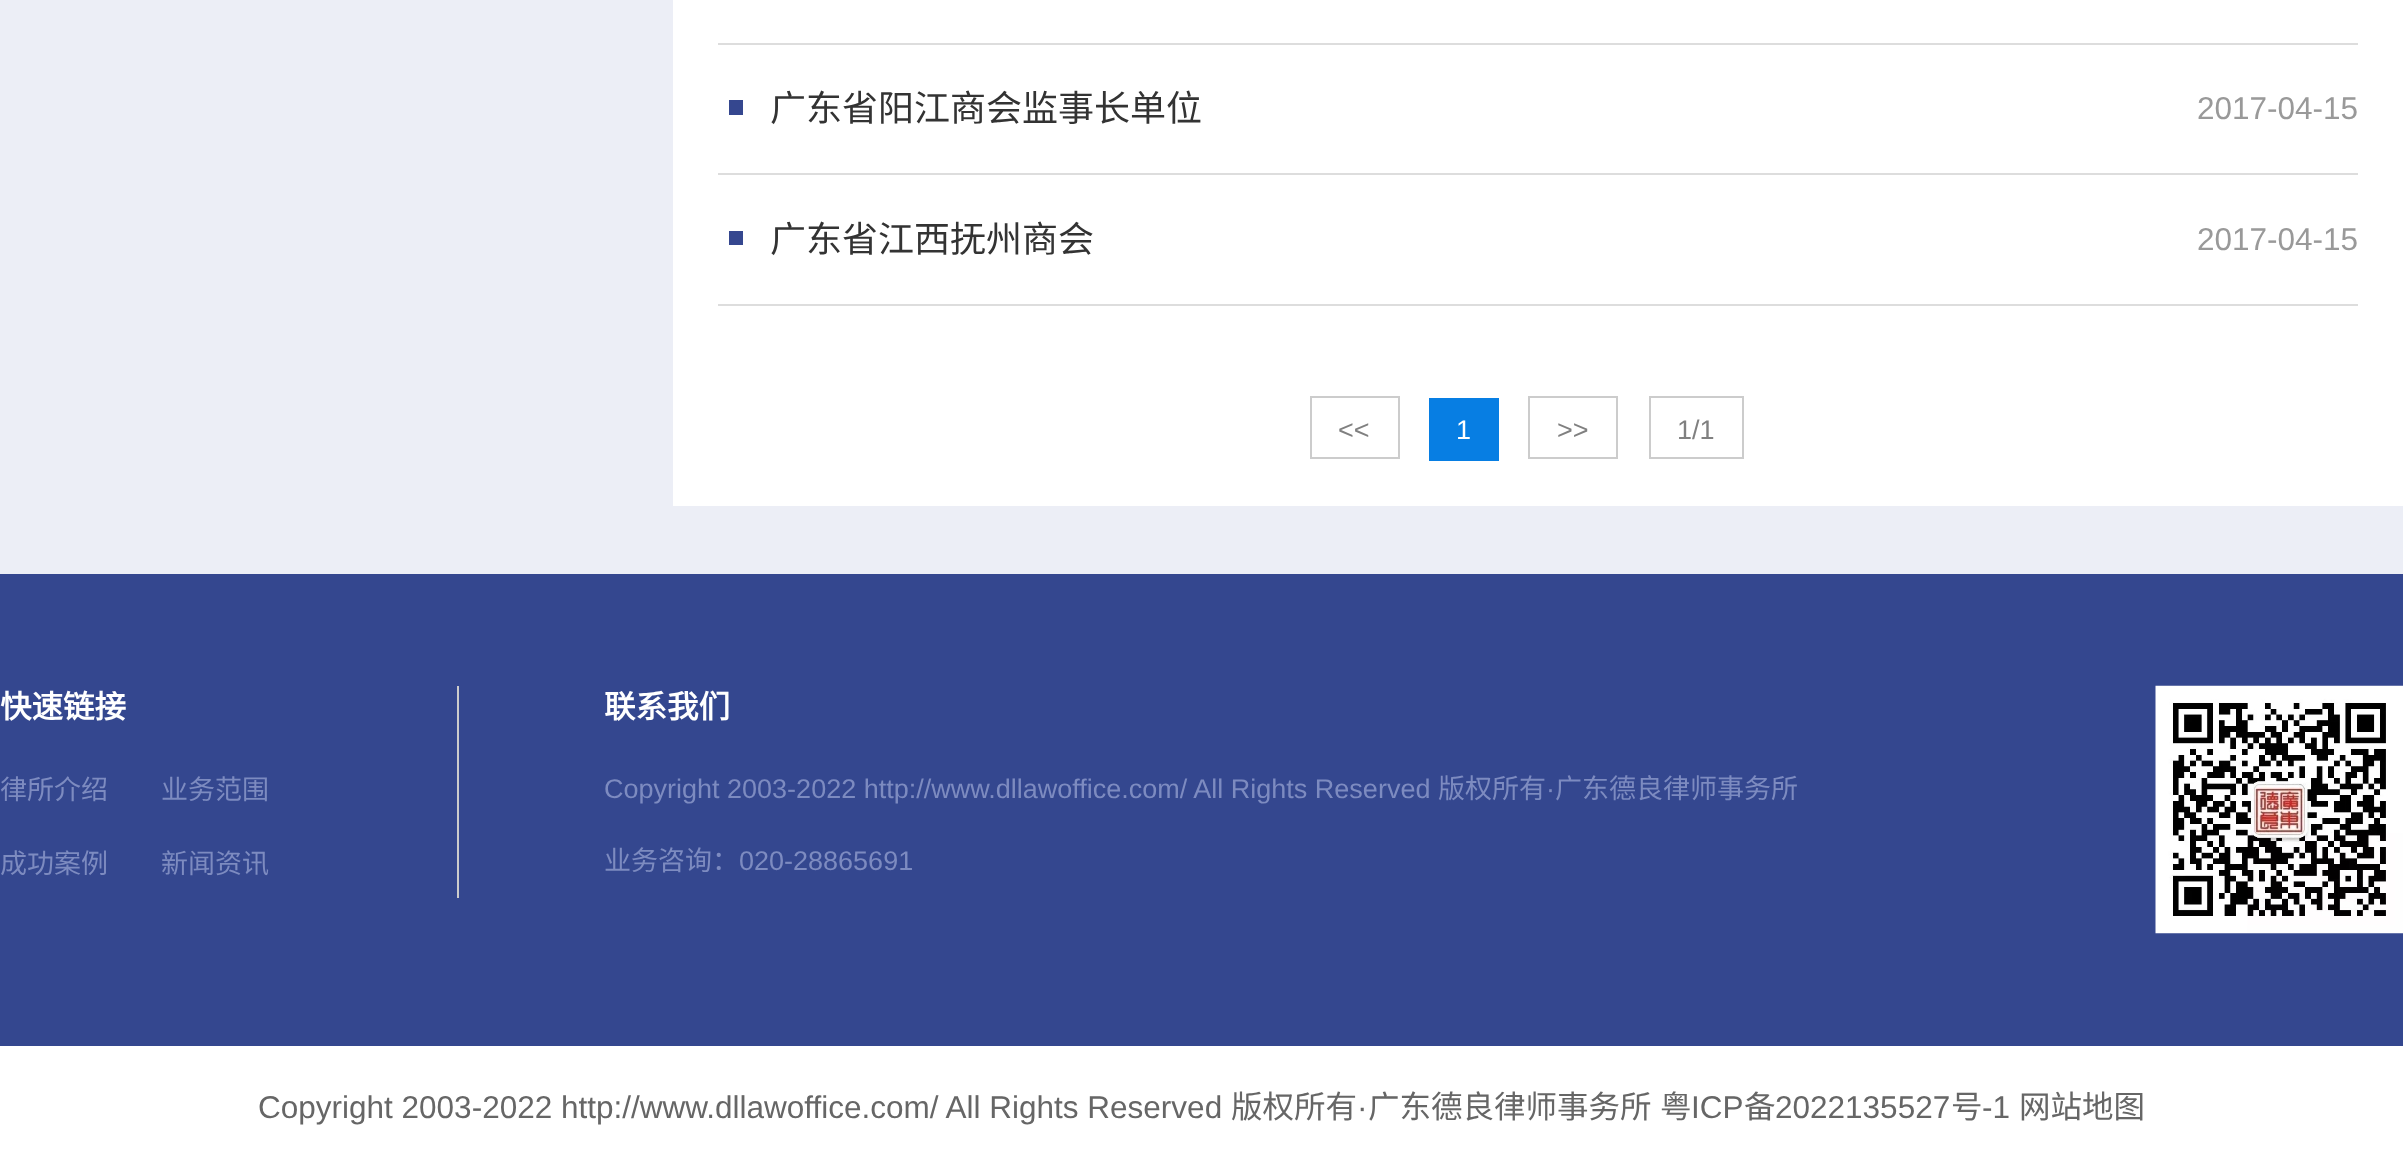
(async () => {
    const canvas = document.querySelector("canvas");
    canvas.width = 2403;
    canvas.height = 1167;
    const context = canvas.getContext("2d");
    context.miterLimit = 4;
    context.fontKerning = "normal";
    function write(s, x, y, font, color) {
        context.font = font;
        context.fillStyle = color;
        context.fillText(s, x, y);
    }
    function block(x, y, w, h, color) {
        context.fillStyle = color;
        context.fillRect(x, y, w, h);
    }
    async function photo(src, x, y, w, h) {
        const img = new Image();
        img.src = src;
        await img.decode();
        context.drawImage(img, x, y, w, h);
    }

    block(0, 0, 2403, 1167, "rgb(255, 255, 255)");
    block(0, 0, 2403, 574, "rgb(236, 238, 246)");
    block(673, 0, 1730, 506, "rgb(255, 255, 255)");
    block(718, 43, 1640, 2, "rgb(221, 221, 221)");
    block(718, 173, 1640, 2, "rgb(221, 221, 221)");
    block(729, 100, 14, 15, "rgb(53, 71, 143)");
    write("广东省阳江商会监事长单位", 770, 121, "36px Noto Sans CJK SC", "rgb(51, 51, 51)");
    write("2017-04-15", 2197, 119, "31.5px Liberation Sans", "rgb(153, 153, 153)");
    block(718, 304, 1640, 2, "rgb(221, 221, 221)");
    block(729, 231, 14, 14, "rgb(53, 71, 143)");
    write("广东省江西抚州商会", 770, 252, "36px Noto Sans CJK SC", "rgb(51, 51, 51)");
    write("2017-04-15", 2197, 250, "31.5px Liberation Sans", "rgb(153, 153, 153)");
    context.strokeStyle = "rgb(204, 204, 204)";
    context.lineWidth = 2;
    context.strokeRect(1311, 397, 88, 61);
    write("<<", 1338, 439, "27px Liberation Sans", "rgb(128, 128, 128)");
    block(1429, 398, 70, 63, "rgb(7, 126, 227)");
    write("1", 1456, 439, "27px Liberation Sans", "rgb(255, 255, 255)");
    context.strokeRect(1529, 397, 88, 61);
    write(">>", 1557, 439, "27px Liberation Sans", "rgb(128, 128, 128)");
    context.strokeRect(1650, 397, 93, 61);
    write("1/1", 1677, 439, "27px Liberation Sans", "rgb(128, 128, 128)");
    block(0, 574, 2403, 472, "rgb(52, 71, 143)");
    write("快速链接", 0, 718, "bold 31.5px Noto Sans CJK SC", "rgb(255, 255, 255)");
    write("律所介绍", 0, 799, "27px Noto Sans CJK SC", "rgb(125, 139, 192)");
    write("业务范围", 161, 799, "27px Noto Sans CJK SC", "rgb(125, 139, 192)");
    write("成功案例", 0, 873, "27px Noto Sans CJK SC", "rgb(125, 139, 192)");
    write("新闻资讯", 161, 873, "27px Noto Sans CJK SC", "rgb(125, 139, 192)");
    block(457, 686, 2, 212, "rgb(204, 204, 204)");
    write("联系我们", 604, 718, "bold 31.5px Noto Sans CJK SC", "rgb(255, 255, 255)");
    write("Copyright 2003-2022 http://www.dllawoffice.com/ All Rights Reserved", 604, 798, "27px Liberation Sans", "rgb(125, 139, 192)");
    write("版权所有", 1438, 798, "27px Noto Sans CJK SC", "rgb(125, 139, 192)");
    write("·", 1546, 798, "27px Liberation Sans", "rgb(125, 139, 192)");
    write("广东德良律师事务所", 1555, 798, "27px Noto Sans CJK SC", "rgb(125, 139, 192)");
    write("业务咨询：", 604, 870, "27px Noto Sans CJK SC", "rgb(125, 139, 192)");
    write("020-28865691", 739, 870, "27px Liberation Sans", "rgb(125, 139, 192)");
    await photo("media/1.png", 2155, 685, 248, 249);
    write("Copyright 2003-2022 http://www.dllawoffice.com/ All Rights Reserved", 258, 1118, "31.5px Liberation Sans", "rgb(102, 102, 102)");
    write("版权所有", 1231, 1118, "31.5px Noto Sans CJK SC", "rgb(102, 102, 102)");
    write("·", 1357, 1118, "31.5px Liberation Sans", "rgb(102, 102, 102)");
    write("广东德良律师事务所", 1368, 1118, "31.5px Noto Sans CJK SC", "rgb(102, 102, 102)");
    write("粤", 1660, 1118, "31.5px Noto Sans CJK SC", "rgb(102, 102, 102)");
    write("ICP", 1691, 1118, "31.5px Liberation Sans", "rgb(102, 102, 102)");
    write("备", 1744, 1118, "31.5px Noto Sans CJK SC", "rgb(102, 102, 102)");
    write("2022135527", 1775, 1118, "31.5px Liberation Sans", "rgb(102, 102, 102)");
    write("号", 1951, 1118, "31.5px Noto Sans CJK SC", "rgb(102, 102, 102)");
    write("-1", 1982, 1118, "31.5px Liberation Sans", "rgb(102, 102, 102)");
    write("网站地图", 2019, 1118, "31.5px Noto Sans CJK SC", "rgb(102, 102, 102)");
})();
